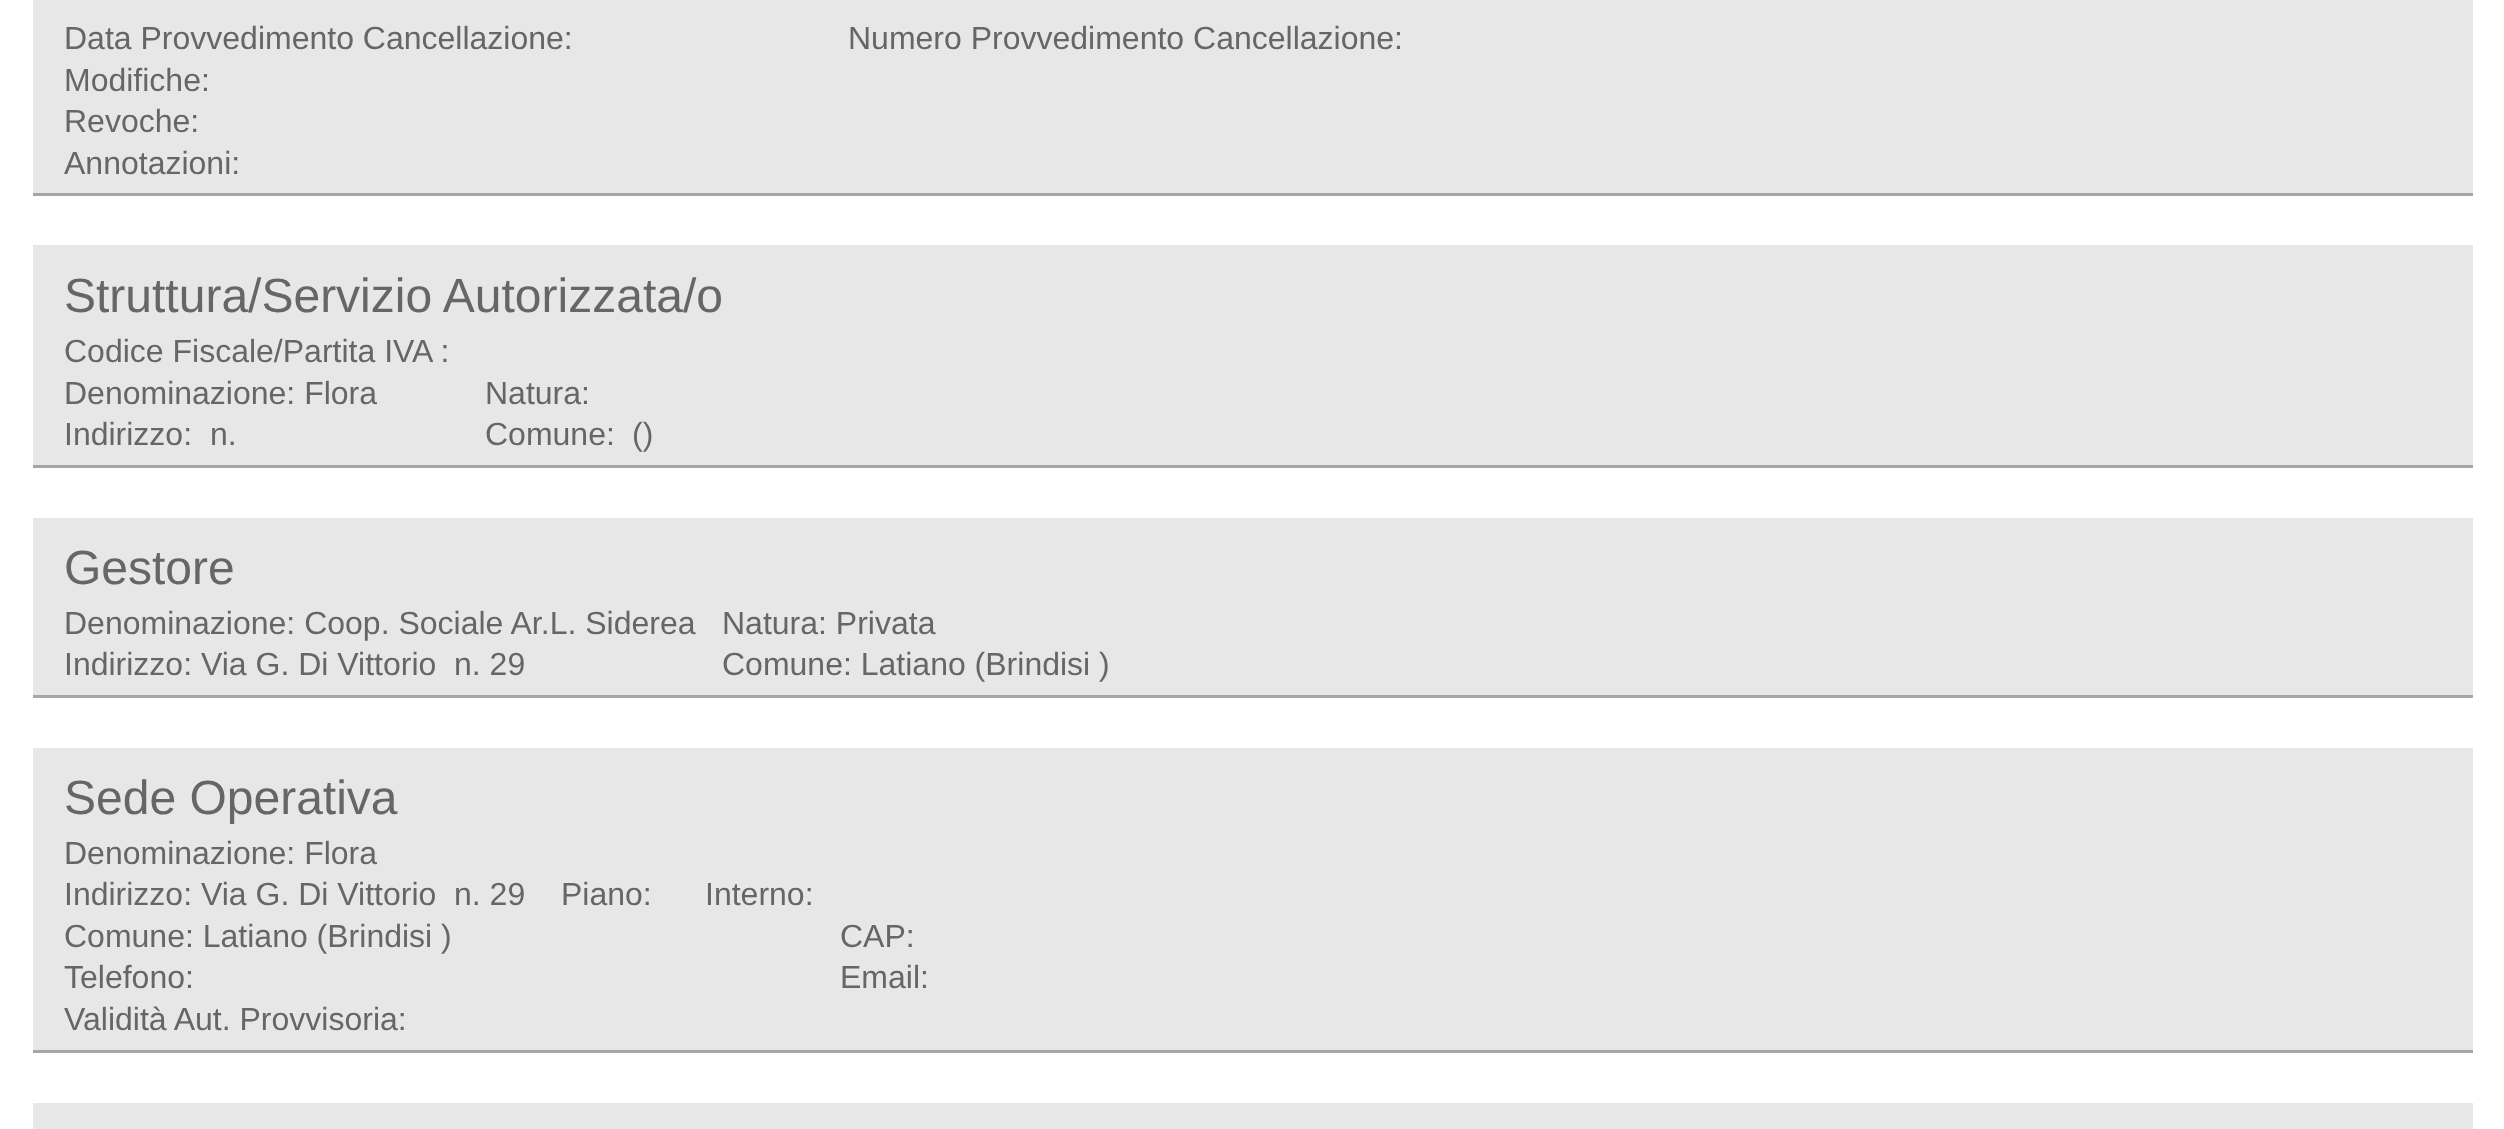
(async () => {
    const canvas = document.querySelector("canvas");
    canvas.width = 2504;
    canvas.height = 1129;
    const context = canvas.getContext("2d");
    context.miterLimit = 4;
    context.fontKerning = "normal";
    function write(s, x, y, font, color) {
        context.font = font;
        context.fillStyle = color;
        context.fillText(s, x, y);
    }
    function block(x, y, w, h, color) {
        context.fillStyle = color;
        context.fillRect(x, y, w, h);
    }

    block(0, 0, 2504, 1129, "rgb(255, 255, 255)");
    block(33, 0, 2440, 193, "rgb(231, 231, 231)");
    block(33, 193, 2440, 3, "rgb(166, 166, 166)");
    write("Data Provvedimento Cancellazione:", 64, 49, "32px Liberation Sans", "rgb(102, 102, 102)");
    write("Numero Provvedimento Cancellazione:", 848, 49, "32px Liberation Sans", "rgb(102, 102, 102)");
    write("Modifiche:", 64, 91, "32px Liberation Sans", "rgb(102, 102, 102)");
    write("Revoche:", 64, 132, "32px Liberation Sans", "rgb(102, 102, 102)");
    write("Annotazioni:", 64, 174, "32px Liberation Sans", "rgb(102, 102, 102)");
    block(33, 245, 2440, 220, "rgb(231, 231, 231)");
    block(33, 465, 2440, 3, "rgb(166, 166, 166)");
    write("Struttura/Servizio Autorizzata/o", 64, 312, "48px Liberation Sans", "rgb(102, 102, 102)");
    write("Codice Fiscale/Partita IVA :", 64, 362, "32px Liberation Sans", "rgb(102, 102, 102)");
    write("Denominazione: Flora", 64, 404, "32px Liberation Sans", "rgb(102, 102, 102)");
    write("Natura:", 485, 404, "32px Liberation Sans", "rgb(102, 102, 102)");
    write("Indirizzo:", 64, 445, "32px Liberation Sans", "rgb(102, 102, 102)");
    write("n.", 210, 445, "32px Liberation Sans", "rgb(102, 102, 102)");
    write("Comune:", 485, 445, "32px Liberation Sans", "rgb(102, 102, 102)");
    write("()", 632, 445, "32px Liberation Sans", "rgb(102, 102, 102)");
    block(33, 518, 2440, 177, "rgb(231, 231, 231)");
    block(33, 695, 2440, 3, "rgb(166, 166, 166)");
    write("Gestore", 64, 584, "48px Liberation Sans", "rgb(102, 102, 102)");
    write("Denominazione: Coop. Sociale Ar.L. Siderea", 64, 634, "32px Liberation Sans", "rgb(102, 102, 102)");
    write("Natura: Privata", 722, 634, "32px Liberation Sans", "rgb(102, 102, 102)");
    write("Indirizzo: Via G. Di Vittorio", 64, 675, "32px Liberation Sans", "rgb(102, 102, 102)");
    write("n. 29", 454, 675, "32px Liberation Sans", "rgb(102, 102, 102)");
    write("Comune: Latiano (Brindisi )", 722, 675, "32px Liberation Sans", "rgb(102, 102, 102)");
    block(33, 748, 2440, 302, "rgb(231, 231, 231)");
    block(33, 1050, 2440, 3, "rgb(166, 166, 166)");
    write("Sede Operativa", 64, 814, "48px Liberation Sans", "rgb(102, 102, 102)");
    write("Denominazione: Flora", 64, 864, "32px Liberation Sans", "rgb(102, 102, 102)");
    write("Indirizzo: Via G. Di Vittorio", 64, 905, "32px Liberation Sans", "rgb(102, 102, 102)");
    write("n. 29", 454, 905, "32px Liberation Sans", "rgb(102, 102, 102)");
    write("Piano:", 561, 905, "32px Liberation Sans", "rgb(102, 102, 102)");
    write("Interno:", 705, 905, "32px Liberation Sans", "rgb(102, 102, 102)");
    write("Comune: Latiano (Brindisi )", 64, 947, "32px Liberation Sans", "rgb(102, 102, 102)");
    write("CAP:", 840, 947, "32px Liberation Sans", "rgb(102, 102, 102)");
    write("Telefono:", 64, 988, "32px Liberation Sans", "rgb(102, 102, 102)");
    write("Email:", 840, 988, "32px Liberation Sans", "rgb(102, 102, 102)");
    write("Validità Aut. Provvisoria:", 64, 1030, "32px Liberation Sans", "rgb(102, 102, 102)");
    block(33, 1103, 2440, 26, "rgb(231, 231, 231)");
})();
